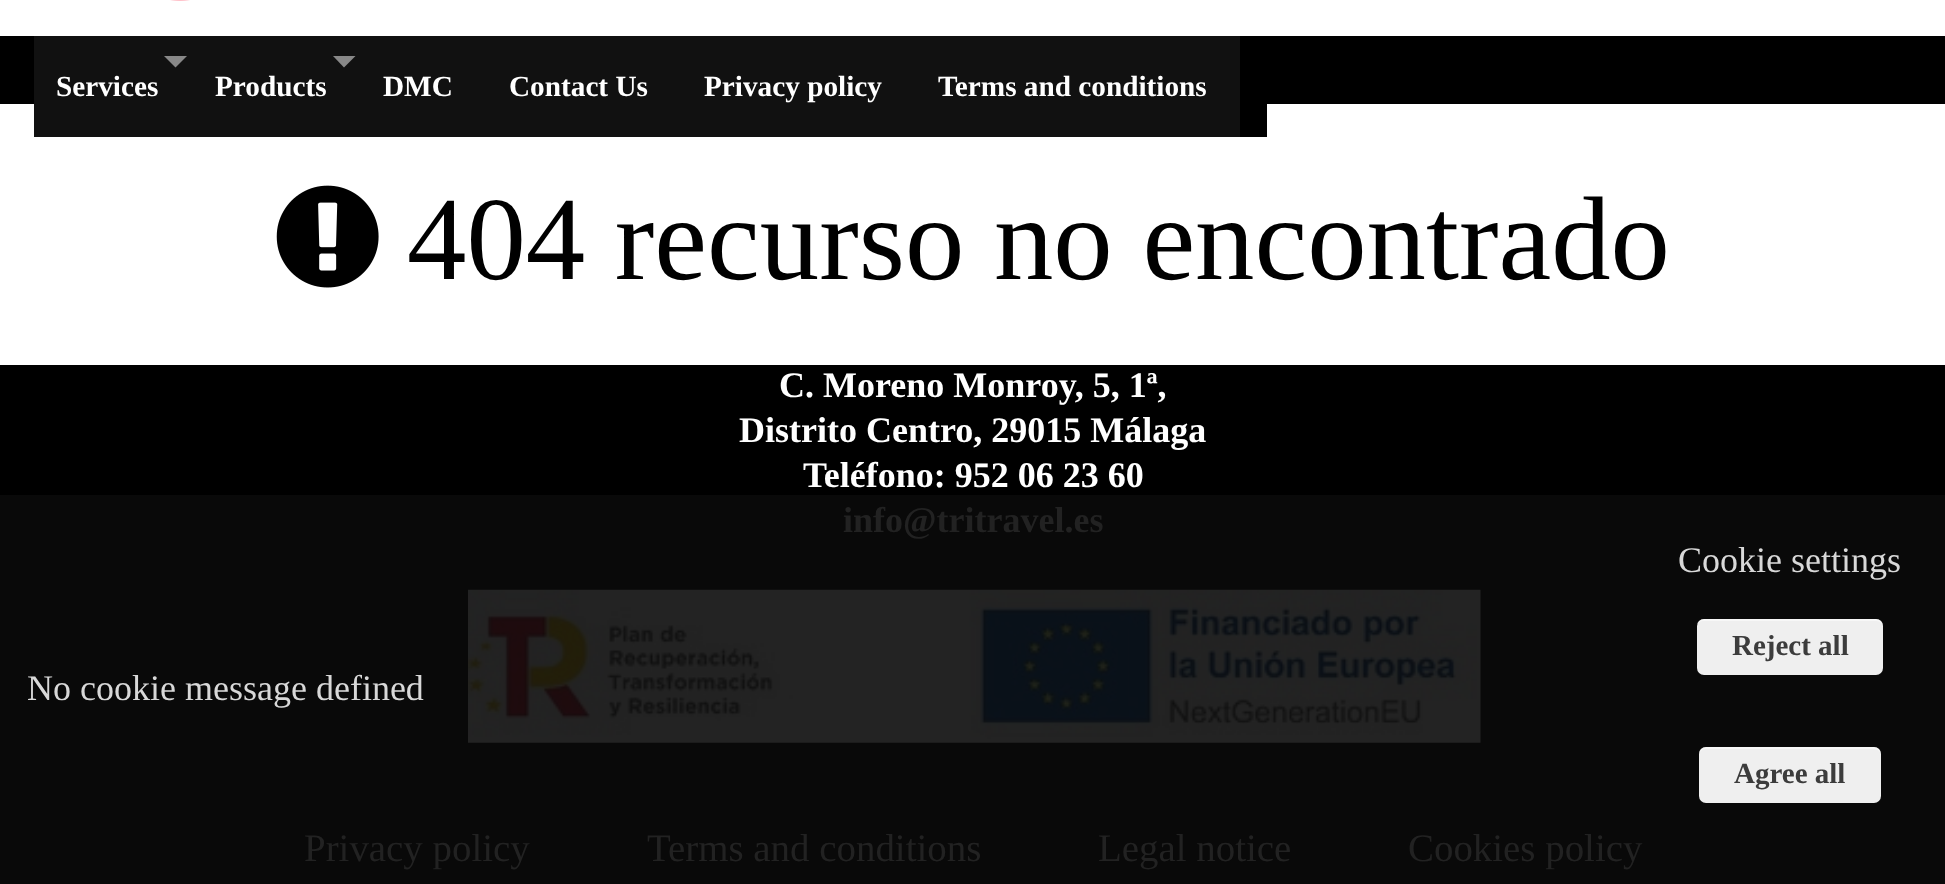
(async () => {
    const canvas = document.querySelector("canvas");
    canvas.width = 1945;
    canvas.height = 884;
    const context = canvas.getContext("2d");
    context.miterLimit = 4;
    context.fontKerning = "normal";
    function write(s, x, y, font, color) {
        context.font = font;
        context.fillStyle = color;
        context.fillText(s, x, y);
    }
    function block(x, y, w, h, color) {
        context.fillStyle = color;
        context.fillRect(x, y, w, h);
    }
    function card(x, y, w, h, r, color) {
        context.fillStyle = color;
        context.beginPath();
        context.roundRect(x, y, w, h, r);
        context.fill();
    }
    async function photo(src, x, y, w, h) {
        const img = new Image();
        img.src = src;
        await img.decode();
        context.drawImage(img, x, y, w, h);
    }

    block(0, 0, 1945, 884, "rgb(255, 255, 255)");
    await photo("media/1.png", 170, 0, 20, 1);
    block(0, 36, 1945, 68, "rgb(0, 0, 0)");
    block(1240, 104, 27, 33, "rgb(0, 0, 0)");
    block(34, 36, 326, 101, "rgb(17, 17, 17)");
    context.fillStyle = "rgb(136, 136, 136)";
    context.beginPath();
    context.moveTo(164, 56);
    context.lineTo(187, 56);
    context.lineTo(175.5, 67.5);
    context.closePath();
    context.fill();
    write("Services", 56, 96, "bold 29.25px Liberation Serif", "rgb(255, 255, 255)");
    context.fillStyle = "rgb(136, 136, 136)";
    context.beginPath();
    context.moveTo(333, 56);
    context.lineTo(355.5, 56);
    context.lineTo(344, 67.5);
    context.closePath();
    context.fill();
    write("Products", 215, 96, "bold 29.25px Liberation Serif", "rgb(255, 255, 255)");
    block(360, 36, 880, 101, "rgb(17, 17, 17)");
    write("DMC", 383, 96, "bold 29.25px Liberation Serif", "rgb(255, 255, 255)");
    write("Contact Us", 509, 96, "bold 29.25px Liberation Serif", "rgb(255, 255, 255)");
    write("Privacy policy", 704, 96, "bold 29.25px Liberation Serif", "rgb(255, 255, 255)");
    write("Terms and conditions", 938, 96, "bold 29.25px Liberation Serif", "rgb(255, 255, 255)");
    await photo("media/2.png", 276, 185, 103, 103);
    write("404 recurso no encontrado", 407, 279, "118.75px Liberation Serif", "rgb(0, 0, 0)");
    block(0, 365, 1945, 130, "rgb(0, 0, 0)");
    block(0, 495, 1945, 389, "rgb(9, 9, 9)");
    write("C. Moreno Monroy, 5, 1ª,", 779, 397, "bold 36px Liberation Serif", "rgb(255, 255, 255)");
    write("Distrito Centro, 29015 Málaga", 739, 442, "bold 36px Liberation Serif", "rgb(255, 255, 255)");
    write("Teléfono: 952 06 23 60", 803, 487, "bold 36px Liberation Serif", "rgb(255, 255, 255)");
    write("info@tritravel.es", 843, 532, "bold 36px Liberation Serif", "rgb(34, 34, 34)");
    await photo("media/3.png", 468, 589, 1013, 154);
    write("Privacy policy", 304, 861, "38.9px Liberation Serif", "rgb(34, 34, 34)");
    write("Terms and conditions", 647, 861, "38.9px Liberation Serif", "rgb(34, 34, 34)");
    write("Legal notice", 1098, 861, "38.9px Liberation Serif", "rgb(34, 34, 34)");
    write("Cookies policy", 1408, 861, "38.9px Liberation Serif", "rgb(34, 34, 34)");
    write("No cookie message defined", 27, 700, "36px Liberation Serif", "rgb(216, 216, 216)");
    write("Cookie settings", 1678, 572, "36px Liberation Serif", "rgb(216, 216, 216)");
    card(1697, 619, 186, 56, 7, "rgb(239, 239, 239)");
    context.fillStyle = "rgba(255, 255, 255, 0.5)";
    context.beginPath();
    context.moveTo(1703, 621);
    context.lineTo(1876, 621);
    context.bezierCurveTo(1880, 621, 1883, 624, 1883, 628);
    context.lineTo(1883, 626);
    context.bezierCurveTo(1883, 622, 1880, 619, 1876, 619);
    context.lineTo(1704, 619);
    context.bezierCurveTo(1701, 619, 1698, 621, 1697, 624);
    context.bezierCurveTo(1699, 622, 1701, 621, 1703, 621);
    context.closePath();
    context.fill();
    write("Reject all", 1732, 655, "bold 29px Liberation Serif", "rgb(60, 60, 60)");
    card(1699, 747, 182, 56, 7, "rgb(239, 239, 239)");
    context.fillStyle = "rgba(255, 255, 255, 0.5)";
    context.beginPath();
    context.moveTo(1706, 749);
    context.lineTo(1874, 749);
    context.bezierCurveTo(1878, 749, 1881, 752, 1881, 756);
    context.lineTo(1881, 754);
    context.bezierCurveTo(1881, 750, 1878, 747, 1874, 747);
    context.lineTo(1706, 747);
    context.bezierCurveTo(1702, 747, 1699, 750, 1699, 754);
    context.lineTo(1699, 756);
    context.bezierCurveTo(1699, 752, 1702, 749, 1706, 749);
    context.closePath();
    context.fill();
    write("Agree all", 1734, 783, "bold 29px Liberation Serif", "rgb(60, 60, 60)");
})();
